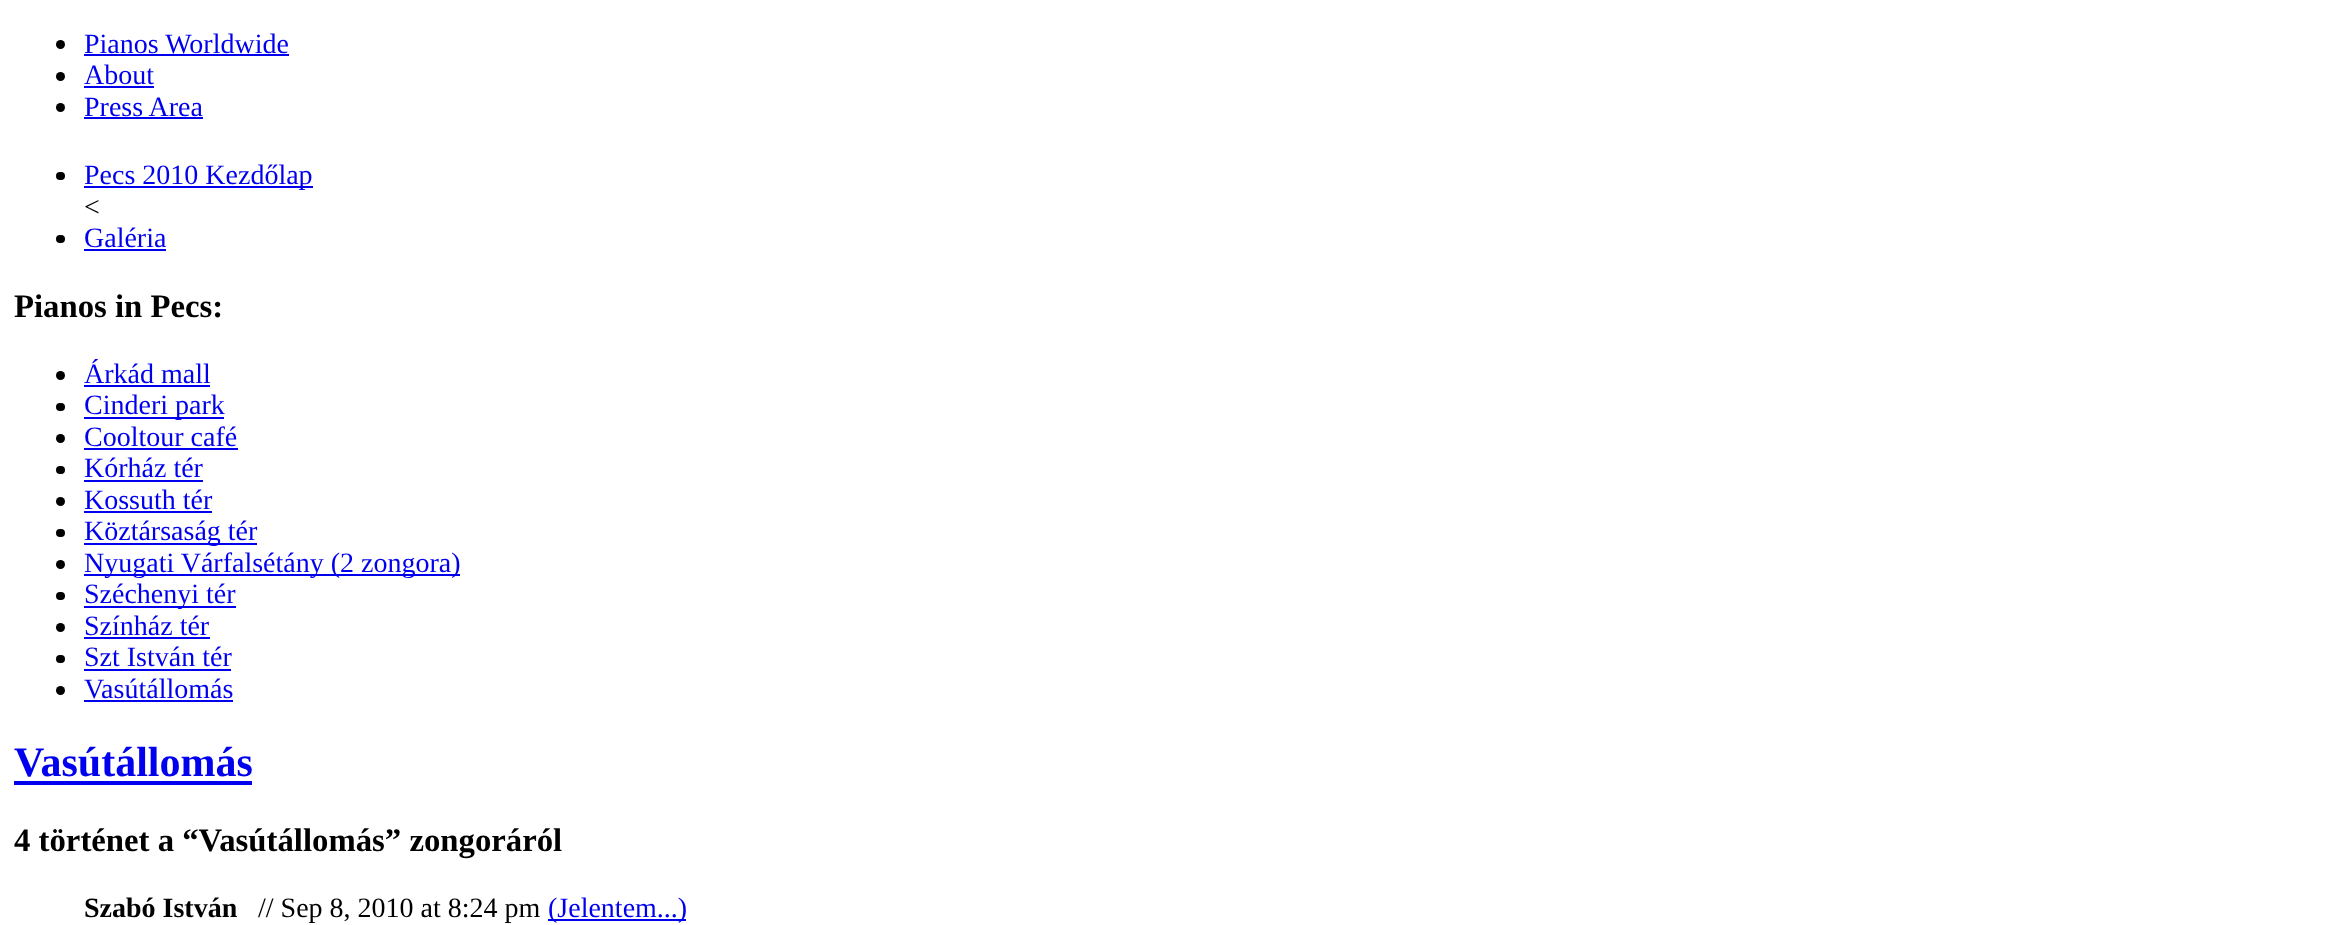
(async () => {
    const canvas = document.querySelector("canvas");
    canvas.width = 2331;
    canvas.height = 925;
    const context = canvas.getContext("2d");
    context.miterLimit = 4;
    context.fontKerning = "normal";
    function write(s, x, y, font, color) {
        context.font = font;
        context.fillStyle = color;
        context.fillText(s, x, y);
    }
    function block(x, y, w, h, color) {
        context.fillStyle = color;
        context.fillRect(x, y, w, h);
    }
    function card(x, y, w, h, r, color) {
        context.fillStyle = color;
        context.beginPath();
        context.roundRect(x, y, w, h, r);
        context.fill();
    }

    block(0, 0, 2331, 925, "rgb(255, 255, 255)");
    context.fillStyle = "rgb(0, 0, 0)";
    context.beginPath();
    context.arc(60.5, 44.5, 4.5, 0, Math.PI * 2);
    context.fill();
    write("Pianos Worldwide", 84, 53, "28px Liberation Serif", "rgb(0, 0, 238)");
    block(84, 54, 205, 2, "rgb(0, 0, 238)");
    context.fillStyle = "rgb(0, 0, 0)";
    context.beginPath();
    context.arc(60.5, 76.5, 4.5, 0, Math.PI * 2);
    context.fill();
    write("About", 84, 84, "28px Liberation Serif", "rgb(0, 0, 238)");
    block(84, 86, 70, 2, "rgb(0, 0, 238)");
    context.fillStyle = "rgb(0, 0, 0)";
    context.beginPath();
    context.arc(60.5, 107.5, 4.5, 0, Math.PI * 2);
    context.fill();
    write("Press Area", 84, 116, "28px Liberation Serif", "rgb(0, 0, 238)");
    block(84, 117, 119, 2, "rgb(0, 0, 238)");
    card(56, 172, 9, 8, 4, "rgb(0, 0, 0)");
    block(84, 186, 229, 2, "rgb(0, 0, 238)");
    write("Pecs 2010 Kezdőlap", 84, 184, "28px Liberation Serif", "rgb(0, 0, 238)");
    write("<", 84, 216, "28px Liberation Serif", "rgb(0, 0, 0)");
    card(56, 235, 9, 8, 4, "rgb(0, 0, 0)");
    write("Galéria", 84, 247, "28px Liberation Serif", "rgb(0, 0, 238)");
    block(84, 249, 82, 2, "rgb(0, 0, 238)");
    write("Pianos in Pecs:", 14, 317, "bold 32.75px Liberation Serif", "rgb(0, 0, 0)");
    context.beginPath();
    context.arc(60.5, 375.5, 4.5, 0, Math.PI * 2);
    context.fill();
    write("Árkád mall", 84, 383, "28px Liberation Serif", "rgb(0, 0, 238)");
    block(84, 385, 126, 2, "rgb(0, 0, 238)");
    card(56, 403, 9, 8, 4, "rgb(0, 0, 0)");
    block(84, 417, 140, 2, "rgb(0, 0, 238)");
    write("Cinderi park", 84, 414, "28px Liberation Serif", "rgb(0, 0, 238)");
    context.fillStyle = "rgb(0, 0, 0)";
    context.beginPath();
    context.arc(60.5, 438.5, 4.5, 0, Math.PI * 2);
    context.fill();
    write("Cooltour café", 84, 446, "28px Liberation Serif", "rgb(0, 0, 238)");
    block(84, 448, 154, 2, "rgb(0, 0, 238)");
    card(56, 466, 9, 8, 4, "rgb(0, 0, 0)");
    write("Kórház tér", 84, 477, "28px Liberation Serif", "rgb(0, 0, 238)");
    block(84, 480, 119, 2, "rgb(0, 0, 238)");
    context.fillStyle = "rgb(0, 0, 0)";
    context.beginPath();
    context.arc(60.5, 501.5, 4.5, 0, Math.PI * 2);
    context.fill();
    write("Kossuth tér", 84, 509, "28px Liberation Serif", "rgb(0, 0, 238)");
    block(84, 511, 128, 2, "rgb(0, 0, 238)");
    card(56, 529, 9, 8, 4, "rgb(0, 0, 0)");
    block(84, 543, 173, 2, "rgb(0, 0, 238)");
    write("Köztársaság tér", 84, 540, "28px Liberation Serif", "rgb(0, 0, 238)");
    context.fillStyle = "rgb(0, 0, 0)";
    context.beginPath();
    context.arc(60.5, 564.5, 4.5, 0, Math.PI * 2);
    context.fill();
    block(84, 574, 376, 2, "rgb(0, 0, 238)");
    write("Nyugati Várfalsétány (2 zongora)", 84, 572, "28px Liberation Serif", "rgb(0, 0, 238)");
    card(56, 592, 9, 8, 4, "rgb(0, 0, 0)");
    block(84, 606, 152, 2, "rgb(0, 0, 238)");
    write("Széchenyi tér", 84, 603, "28px Liberation Serif", "rgb(0, 0, 238)");
    context.fillStyle = "rgb(0, 0, 0)";
    context.beginPath();
    context.arc(60.5, 627.5, 4.5, 0, Math.PI * 2);
    context.fill();
    write("Színház tér", 84, 635, "28px Liberation Serif", "rgb(0, 0, 238)");
    block(84, 637, 126, 2, "rgb(0, 0, 238)");
    card(56, 655, 9, 8, 4, "rgb(0, 0, 0)");
    write("Szt István tér", 84, 666, "28px Liberation Serif", "rgb(0, 0, 238)");
    block(84, 669, 147, 2, "rgb(0, 0, 238)");
    context.fillStyle = "rgb(0, 0, 0)";
    context.beginPath();
    context.arc(60.5, 690.5, 4.5, 0, Math.PI * 2);
    context.fill();
    write("Vasútállomás", 84, 698, "28px Liberation Serif", "rgb(0, 0, 238)");
    block(84, 700, 149, 2, "rgb(0, 0, 238)");
    write("Vasútállomás", 14, 776, "bold 42px Liberation Serif", "rgb(0, 0, 238)");
    block(14, 781, 238, 4, "rgb(0, 0, 238)");
    write("4 történet a “Vasútállomás” zongoráról", 14, 851, "bold 32.75px Liberation Serif", "rgb(0, 0, 0)");
    write("Szabó István", 84, 917, "bold 28px Liberation Serif", "rgb(0, 0, 0)");
    write("// Sep 8, 2010 at 8:24 pm", 258, 917, "28px Liberation Serif", "rgb(0, 0, 0)");
    block(548, 919, 138, 2, "rgb(0, 0, 238)");
    write("(Jelentem...)", 548, 917, "28px Liberation Serif", "rgb(0, 0, 238)");
})();
